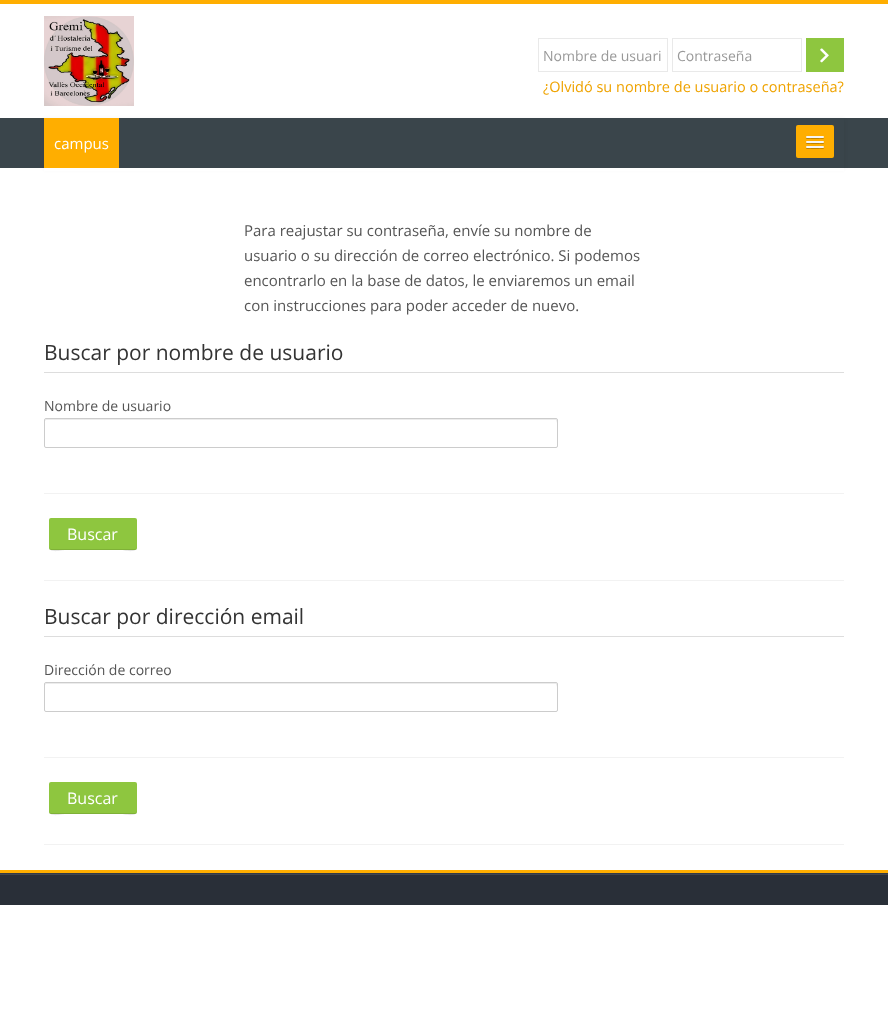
(async () => {
    const canvas = document.querySelector("canvas");
    canvas.width = 888;
    canvas.height = 1030;
    const context = canvas.getContext("2d");
    context.miterLimit = 4;
    context.fontKerning = "normal";
    function write(s, x, y, font, color) {
        context.font = font;
        context.fillStyle = color;
        context.fillText(s, x, y);
    }
    function block(x, y, w, h, color) {
        context.fillStyle = color;
        context.fillRect(x, y, w, h);
    }
    function card(x, y, w, h, r, color) {
        context.fillStyle = color;
        context.beginPath();
        context.roundRect(x, y, w, h, r);
        context.fill();
    }
    async function photo(src, x, y, w, h) {
        const img = new Image();
        img.src = src;
        await img.decode();
        context.drawImage(img, x, y, w, h);
    }

    block(0, 0, 888, 1030, "rgb(255, 255, 255)");
    block(0, 0, 888, 4, "rgb(255, 174, 0)");
    await photo("media/1.png", 44, 16, 90, 90);
    context.strokeStyle = "rgb(233, 233, 233)";
    context.strokeRect(538.5, 38.5, 129, 33);
    write("Nombre de usuari", 543, 61, "14px Open Sans", "rgb(153, 153, 153)");
    context.strokeRect(672.5, 38.5, 129, 33);
    write("Contraseña", 677, 61, "14px Open Sans", "rgb(153, 153, 153)");
    block(806, 38, 38, 34, "rgb(142, 198, 63)");
    await photo("media/2.png", 820, 48, 9, 15);
    write("¿Olvidó su nombre de usuario o contraseña?", 543, 92, "14.5px Open Sans", "rgb(239, 163, 0)");
    block(0, 118, 888, 50, "rgb(58, 69, 75)");
    context.save();
    context.beginPath();
    context.moveTo(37, 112);
    context.lineTo(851, 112);
    context.lineTo(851, 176);
    context.lineTo(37, 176);
    context.closePath();
    context.moveTo(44, 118);
    context.lineTo(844, 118);
    context.lineTo(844, 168);
    context.lineTo(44, 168);
    context.closePath();
    context.clip("evenodd");
    context.fillStyle = "rgba(0, 0, 0, 0.07)";
    context.filter = "blur(2px)";
    context.beginPath();
    context.rect(44, 119, 800, 50);
    context.fill();
    context.filter = "none";
    context.restore();
    block(44, 118, 75, 50, "rgb(255, 174, 0)");
    write("campus", 54, 149, "15px Open Sans", "rgb(255, 255, 255)");
    card(796, 125, 38, 33, 2, "rgb(255, 174, 0)");
    context.fillStyle = "rgb(191, 131, 0)";
    context.beginPath();
    context.moveTo(806, 137.5);
    context.bezierCurveTo(805, 139.5, 809.5, 139, 809.5, 139);
    context.lineTo(820.5, 139);
    context.bezierCurveTo(820.5, 139, 825, 139.5, 824, 137.5);
    context.bezierCurveTo(823, 138.5, 816.5, 138, 815, 138);
    context.bezierCurveTo(813.5, 138, 807, 138.5, 806, 137.5);
    context.closePath();
    context.fill();
    card(806, 136, 18, 2, 1, "rgb(245, 245, 245)");
    context.fillStyle = "rgb(191, 131, 0)";
    context.beginPath();
    context.moveTo(806, 142.5);
    context.bezierCurveTo(805, 144.5, 809.5, 144, 809.5, 144);
    context.lineTo(820.5, 144);
    context.bezierCurveTo(820.5, 144, 825, 144.5, 824, 142.5);
    context.bezierCurveTo(823, 143.5, 816.5, 143, 815, 143);
    context.bezierCurveTo(813.5, 143, 807, 143.5, 806, 142.5);
    context.closePath();
    context.fill();
    card(806, 141, 18, 2, 1, "rgb(245, 245, 245)");
    context.fillStyle = "rgb(191, 131, 0)";
    context.beginPath();
    context.moveTo(806, 147.5);
    context.bezierCurveTo(805, 149.5, 809.5, 149, 809.5, 149);
    context.lineTo(820.5, 149);
    context.bezierCurveTo(820.5, 149, 825, 149.5, 824, 147.5);
    context.bezierCurveTo(823, 148.5, 816.5, 148, 815, 148);
    context.bezierCurveTo(813.5, 148, 807, 148.5, 806, 147.5);
    context.closePath();
    context.fill();
    card(806, 146, 18, 2, 1, "rgb(245, 245, 245)");
    block(44, 168, 800, 3, "rgb(255, 255, 255)");
    write("Para reajustar su contraseña, envíe su nombre de", 244, 236, "15px Open Sans", "rgb(85, 85, 85)");
    write("usuario o su dirección de correo electrónico. Si podemos", 244, 261, "15px Open Sans", "rgb(85, 85, 85)");
    write("encontrarlo en la base de datos, le enviaremos un email", 244, 286, "15px Open Sans", "rgb(85, 85, 85)");
    write("con instrucciones para poder acceder de nuevo.", 244, 311, "15px Open Sans", "rgb(85, 85, 85)");
    block(44, 372, 800, 1, "rgb(221, 221, 221)");
    write("Buscar por nombre de usuario", 44, 360, "21px Open Sans", "rgb(51, 51, 51)");
    block(44, 493, 800, 1, "rgb(242, 242, 242)");
    write("Nombre de usuario", 44, 411, "14px Open Sans", "rgb(85, 85, 85)");
    context.fillStyle = "rgb(236, 236, 236)";
    context.beginPath();
    context.moveTo(46, 420);
    context.lineTo(556, 420);
    context.lineTo(557, 423);
    context.bezierCurveTo(557, 422, 558, 419, 556, 419);
    context.lineTo(46, 419);
    context.lineTo(45, 420);
    context.lineTo(45, 421);
    context.closePath();
    context.fill();
    context.beginPath();
    context.roundRect(44.5, 418.5, 513, 29, 1.5);
    context.strokeStyle = "rgb(204, 204, 204)";
    context.stroke();
    block(44, 580, 800, 1, "rgb(242, 242, 242)");
    card(49, 518, 88, 32, 2, "rgb(142, 198, 63)");
    context.fillStyle = "rgba(0, 0, 0, 0.1)";
    context.beginPath();
    context.moveTo(49, 547);
    context.bezierCurveTo(49, 554, 63, 550, 65, 550);
    context.lineTo(121, 550);
    context.bezierCurveTo(123, 550, 137, 554, 137, 547);
    context.bezierCurveTo(137, 548, 136, 549, 135, 549);
    context.lineTo(51, 549);
    context.bezierCurveTo(50, 549, 49, 548, 49, 547);
    context.closePath();
    context.fill();
    write("Buscar", 67, 540, "16px Open Sans", "rgb(255, 255, 255)");
    block(44, 636, 800, 1, "rgb(221, 221, 221)");
    write("Buscar por dirección email", 44, 624, "21px Open Sans", "rgb(51, 51, 51)");
    block(44, 757, 800, 1, "rgb(242, 242, 242)");
    write("Dirección de correo", 44, 675, "14px Open Sans", "rgb(85, 85, 85)");
    context.fillStyle = "rgb(236, 236, 236)";
    context.beginPath();
    context.moveTo(46, 684);
    context.lineTo(556, 684);
    context.lineTo(557, 687);
    context.bezierCurveTo(557, 686, 558, 683, 556, 683);
    context.lineTo(46, 683);
    context.lineTo(45, 684);
    context.lineTo(45, 685);
    context.closePath();
    context.fill();
    context.beginPath();
    context.roundRect(44.5, 682.5, 513, 29, 1.5);
    context.stroke();
    block(44, 844, 800, 1, "rgb(242, 242, 242)");
    card(49, 782, 88, 32, 2, "rgb(142, 198, 63)");
    context.fillStyle = "rgba(0, 0, 0, 0.1)";
    context.beginPath();
    context.moveTo(49, 811);
    context.bezierCurveTo(49, 818, 63, 814, 65, 814);
    context.lineTo(121, 814);
    context.bezierCurveTo(123, 814, 137, 818, 137, 811);
    context.bezierCurveTo(137, 812, 136, 813, 135, 813);
    context.lineTo(51, 813);
    context.bezierCurveTo(50, 813, 49, 812, 49, 811);
    context.closePath();
    context.fill();
    write("Buscar", 67, 804, "16px Open Sans", "rgb(255, 255, 255)");
    block(0, 873, 888, 1, "rgb(50, 58, 69)");
    block(0, 870, 888, 3, "rgb(255, 174, 0)");
    block(0, 875, 888, 30, "rgb(41, 47, 56)");
    block(0, 874, 888, 1, "rgb(65, 70, 78)");
})();
